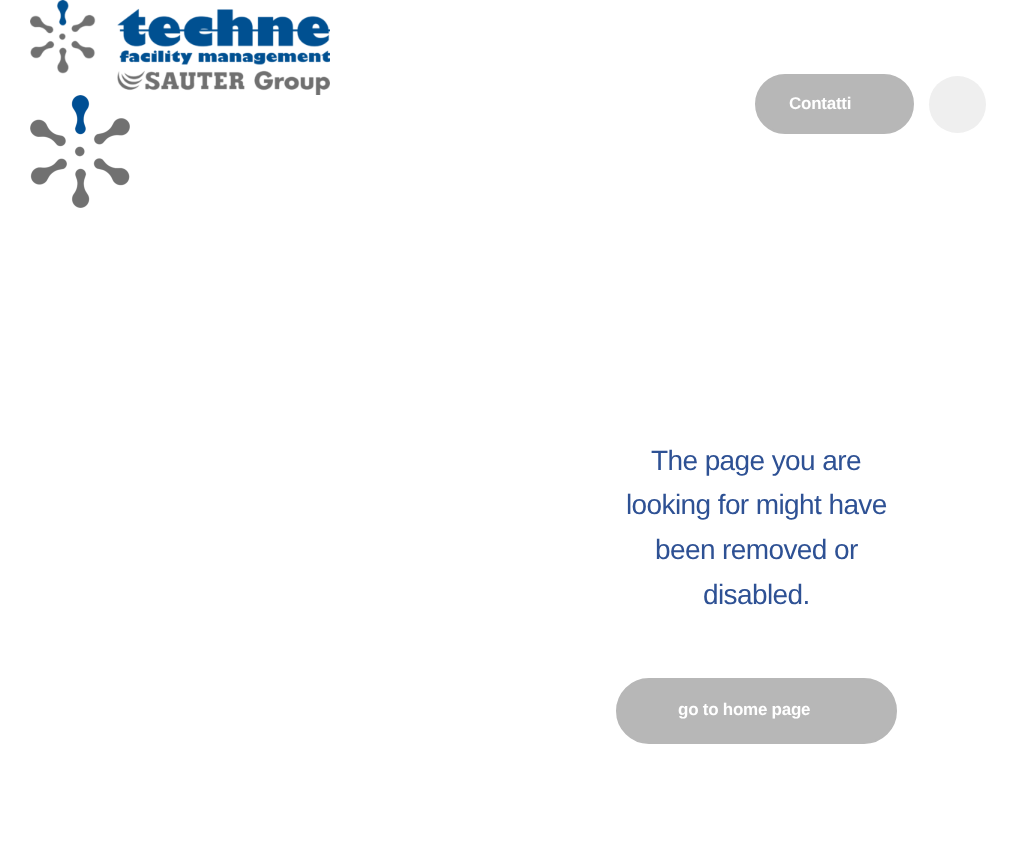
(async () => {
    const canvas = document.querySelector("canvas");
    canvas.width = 1016;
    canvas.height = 867;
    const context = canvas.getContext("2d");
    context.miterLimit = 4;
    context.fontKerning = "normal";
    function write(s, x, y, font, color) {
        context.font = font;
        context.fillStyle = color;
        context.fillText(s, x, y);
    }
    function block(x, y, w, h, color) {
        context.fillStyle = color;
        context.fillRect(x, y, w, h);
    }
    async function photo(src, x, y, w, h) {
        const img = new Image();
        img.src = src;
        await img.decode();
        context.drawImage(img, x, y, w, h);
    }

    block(0, 0, 1016, 867, "rgb(255, 255, 255)");
    await photo("media/1.png", 30, 0, 300, 95);
    await photo("media/2.png", 30, 95, 100, 113);
    context.fillStyle = "rgb(183, 183, 183)";
    context.beginPath();
    context.roundRect(756, 75, 157, 58, 29);
    context.fill();
    context.strokeStyle = "rgb(183, 183, 183)";
    context.lineWidth = 2;
    context.stroke();
    context.letterSpacing = "-0.25px";
    write("Contatti", 789, 109, "bold 17px Liberation Sans", "rgb(255, 255, 255)");
    context.fillStyle = "rgb(239, 239, 239)";
    context.beginPath();
    context.arc(957.5, 104.5, 28.5, 0, Math.PI * 2);
    context.fill();
    context.letterSpacing = "-0.6px";
    write("The page you are", 651, 470, "28px Liberation Sans", "rgb(46, 81, 148)");
    write("looking for might have", 626, 514, "28px Liberation Sans", "rgb(46, 81, 148)");
    write("been removed or", 655, 559, "28px Liberation Sans", "rgb(46, 81, 148)");
    write("disabled.", 703, 604, "28px Liberation Sans", "rgb(46, 81, 148)");
    context.fillStyle = "rgb(183, 183, 183)";
    context.beginPath();
    context.roundRect(617, 679, 279, 64, 32);
    context.fill();
    context.stroke();
    context.letterSpacing = "-0.25px";
    write("go to home page", 678, 715, "bold 17px Liberation Sans", "rgb(255, 255, 255)");
})();
